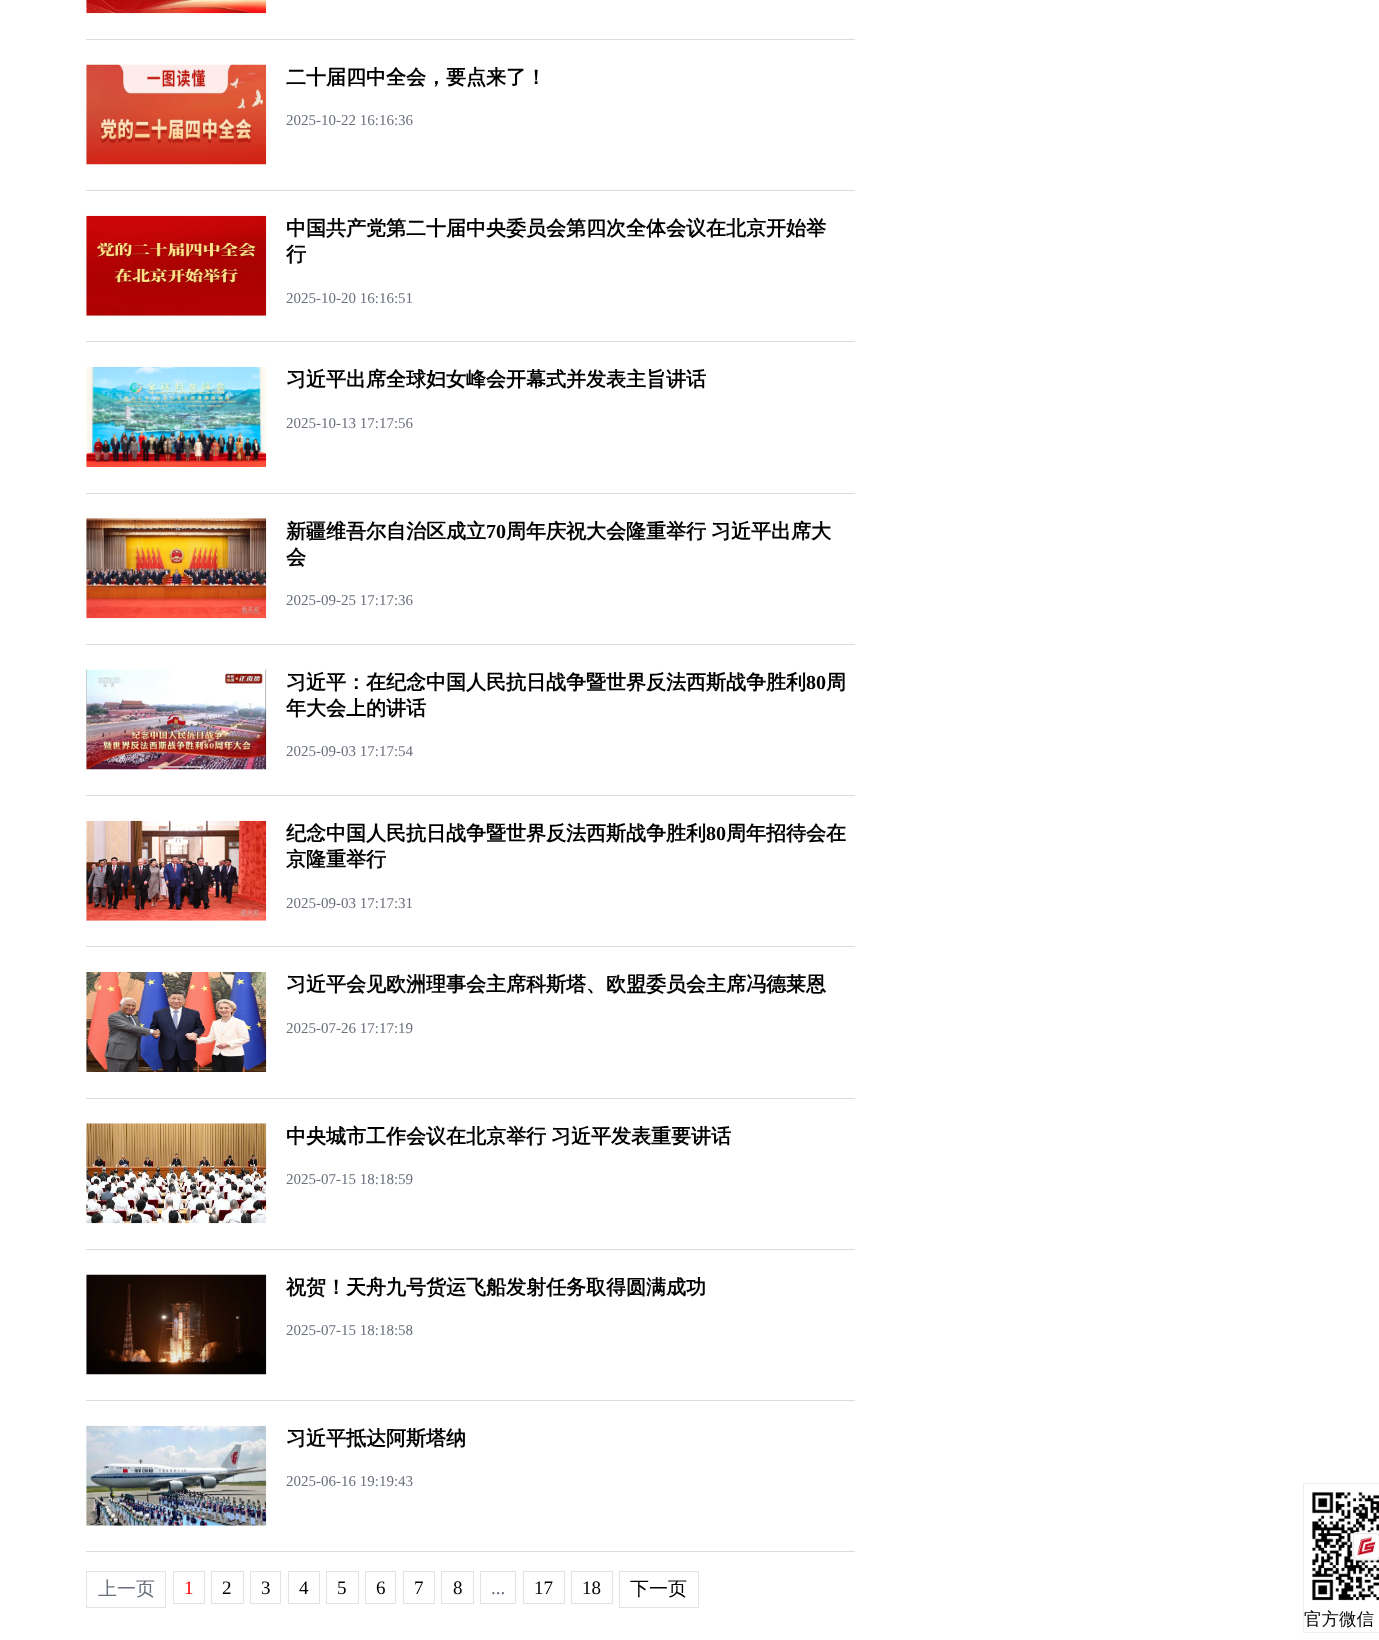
(async () => {
    const canvas = document.querySelector("canvas");
    canvas.width = 1379;
    canvas.height = 1640;
    const context = canvas.getContext("2d");
    context.miterLimit = 4;
    context.fontKerning = "normal";
    function write(s, x, y, font, color) {
        context.font = font;
        context.fillStyle = color;
        context.fillText(s, x, y);
    }
    function block(x, y, w, h, color) {
        context.fillStyle = color;
        context.fillRect(x, y, w, h);
    }
    async function photo(src, x, y, w, h) {
        const img = new Image();
        img.src = src;
        await img.decode();
        context.drawImage(img, x, y, w, h);
    }

    block(0, 0, 1379, 1640, "rgb(255, 255, 255)");
    block(86, 39, 769, 1, "rgb(220, 220, 220)");
    await photo("media/1.png", 86, 0, 181, 14);
    block(86, 190, 769, 1, "rgb(220, 220, 220)");
    await photo("media/2.png", 86, 64, 181, 101);
    write("二十届四中全会，要点来了！", 286, 84, "bold 20px WenQuanYi Zen Hei", "rgb(0, 0, 0)");
    write("2025-10-22 16:16:36", 286, 125, "15px Liberation Serif", "rgb(105, 111, 123)");
    block(86, 341, 769, 1, "rgb(220, 220, 220)");
    await photo("media/3.png", 86, 215, 181, 101);
    write("中国共产党第二十届中央委员会第四次全体会议在北京开始举", 286, 235, "bold 20px WenQuanYi Zen Hei", "rgb(0, 0, 0)");
    write("行", 286, 261, "bold 20px WenQuanYi Zen Hei", "rgb(0, 0, 0)");
    write("2025-10-20 16:16:51", 286, 303, "15px Liberation Serif", "rgb(105, 111, 123)");
    block(86, 493, 769, 1, "rgb(220, 220, 220)");
    await photo("media/4.png", 86, 367, 181, 100);
    write("习近平出席全球妇女峰会开幕式并发表主旨讲话", 286, 386, "bold 20px WenQuanYi Zen Hei", "rgb(0, 0, 0)");
    write("2025-10-13 17:17:56", 286, 428, "15px Liberation Serif", "rgb(105, 111, 123)");
    block(86, 644, 769, 1, "rgb(220, 220, 220)");
    await photo("media/5.png", 86, 518, 181, 101);
    write("新疆维吾尔自治区成立", 286, 538, "bold 20px WenQuanYi Zen Hei", "rgb(0, 0, 0)");
    write("70", 486, 538, "bold 20px Liberation Serif", "rgb(0, 0, 0)");
    context.wordSpacing = "-1px";
    write("周年庆祝大会隆重举行 习近平出席大", 506, 538, "bold 20px WenQuanYi Zen Hei", "rgb(0, 0, 0)");
    context.wordSpacing = "0px";
    write("会", 286, 564, "bold 20px WenQuanYi Zen Hei", "rgb(0, 0, 0)");
    write("2025-09-25 17:17:36", 286, 605, "15px Liberation Serif", "rgb(105, 111, 123)");
    block(86, 795, 769, 1, "rgb(220, 220, 220)");
    await photo("media/6.png", 86, 669, 181, 101);
    write("习近平：在纪念中国人民抗日战争暨世界反法西斯战争胜利", 286, 689, "bold 20px WenQuanYi Zen Hei", "rgb(0, 0, 0)");
    write("80", 806, 689, "bold 20px Liberation Serif", "rgb(0, 0, 0)");
    write("周", 826, 689, "bold 20px WenQuanYi Zen Hei", "rgb(0, 0, 0)");
    write("年大会上的讲话", 286, 715, "bold 20px WenQuanYi Zen Hei", "rgb(0, 0, 0)");
    write("2025-09-03 17:17:54", 286, 756, "15px Liberation Serif", "rgb(105, 111, 123)");
    block(86, 946, 769, 1, "rgb(220, 220, 220)");
    await photo("media/7.png", 86, 820, 181, 101);
    write("纪念中国人民抗日战争暨世界反法西斯战争胜利", 286, 840, "bold 20px WenQuanYi Zen Hei", "rgb(0, 0, 0)");
    write("80", 706, 840, "bold 20px Liberation Serif", "rgb(0, 0, 0)");
    write("周年招待会在", 726, 840, "bold 20px WenQuanYi Zen Hei", "rgb(0, 0, 0)");
    write("京隆重举行", 286, 866, "bold 20px WenQuanYi Zen Hei", "rgb(0, 0, 0)");
    write("2025-09-03 17:17:31", 286, 908, "15px Liberation Serif", "rgb(105, 111, 123)");
    block(86, 1098, 769, 1, "rgb(220, 220, 220)");
    await photo("media/8.png", 86, 972, 181, 100);
    write("习近平会见欧洲理事会主席科斯塔、欧盟委员会主席冯德莱恩", 286, 991, "bold 20px WenQuanYi Zen Hei", "rgb(0, 0, 0)");
    write("2025-07-26 17:17:19", 286, 1033, "15px Liberation Serif", "rgb(105, 111, 123)");
    block(86, 1249, 769, 1, "rgb(220, 220, 220)");
    await photo("media/9.png", 86, 1123, 181, 101);
    context.wordSpacing = "-1px";
    write("中央城市工作会议在北京举行 习近平发表重要讲话", 286, 1143, "bold 20px WenQuanYi Zen Hei", "rgb(0, 0, 0)");
    context.wordSpacing = "0px";
    write("2025-07-15 18:18:59", 286, 1184, "15px Liberation Serif", "rgb(105, 111, 123)");
    block(86, 1400, 769, 1, "rgb(220, 220, 220)");
    await photo("media/10.png", 86, 1274, 181, 101);
    write("祝贺！天舟九号货运飞船发射任务取得圆满成功", 286, 1294, "bold 20px WenQuanYi Zen Hei", "rgb(0, 0, 0)");
    write("2025-07-15 18:18:58", 286, 1335, "15px Liberation Serif", "rgb(105, 111, 123)");
    block(86, 1551, 769, 1, "rgb(220, 220, 220)");
    await photo("media/11.png", 86, 1425, 181, 101);
    write("习近平抵达阿斯塔纳", 286, 1445, "bold 20px WenQuanYi Zen Hei", "rgb(0, 0, 0)");
    write("2025-06-16 19:19:43", 286, 1486, "15px Liberation Serif", "rgb(105, 111, 123)");
    context.strokeStyle = "rgb(227, 227, 227)";
    context.strokeRect(86.5, 1571.5, 79, 36);
    write("上一页", 98, 1595, "500 19px WenQuanYi Zen Hei", "rgb(105, 111, 123)");
    context.strokeRect(173.5, 1571.5, 31, 32);
    write("1", 184, 1594, "19px Liberation Serif", "rgb(255, 0, 0)");
    context.strokeRect(211.5, 1571.5, 32, 32);
    write("2", 222, 1594, "19px Liberation Serif", "rgb(0, 0, 0)");
    context.strokeRect(250.5, 1571.5, 30, 32);
    write("3", 261, 1594, "19px Liberation Serif", "rgb(0, 0, 0)");
    context.strokeRect(288.5, 1571.5, 31, 32);
    write("4", 299, 1594, "19px Liberation Serif", "rgb(0, 0, 0)");
    context.strokeRect(326.5, 1571.5, 32, 32);
    write("5", 337, 1594, "19px Liberation Serif", "rgb(0, 0, 0)");
    context.strokeRect(365.5, 1571.5, 30, 32);
    write("6", 376, 1594, "19px Liberation Serif", "rgb(0, 0, 0)");
    context.strokeRect(403.5, 1571.5, 31, 32);
    write("7", 414, 1594, "19px Liberation Serif", "rgb(0, 0, 0)");
    context.strokeRect(441.5, 1571.5, 32, 32);
    write("8", 453, 1594, "19px Liberation Serif", "rgb(0, 0, 0)");
    context.strokeRect(480.5, 1571.5, 35, 32);
    write("...", 491, 1594, "19px Liberation Serif", "rgb(105, 111, 123)");
    context.strokeRect(523.5, 1571.5, 41, 32);
    write("17", 534, 1594, "19px Liberation Serif", "rgb(0, 0, 0)");
    context.strokeRect(571.5, 1571.5, 41, 32);
    write("18", 582, 1594, "19px Liberation Serif", "rgb(0, 0, 0)");
    context.strokeRect(619.5, 1571.5, 79, 36);
    write("下一页", 630, 1595, "500 19px WenQuanYi Zen Hei", "rgb(0, 0, 0)");
    context.strokeStyle = "rgb(239, 239, 239)";
    context.strokeRect(1303.5, 1483.5, 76, 149);
    await photo("media/12.png", 1312, 1492, 67, 109);
    write("官方微信", 1304, 1625, "500 17.5px WenQuanYi Zen Hei", "rgb(0, 0, 0)");
})();
